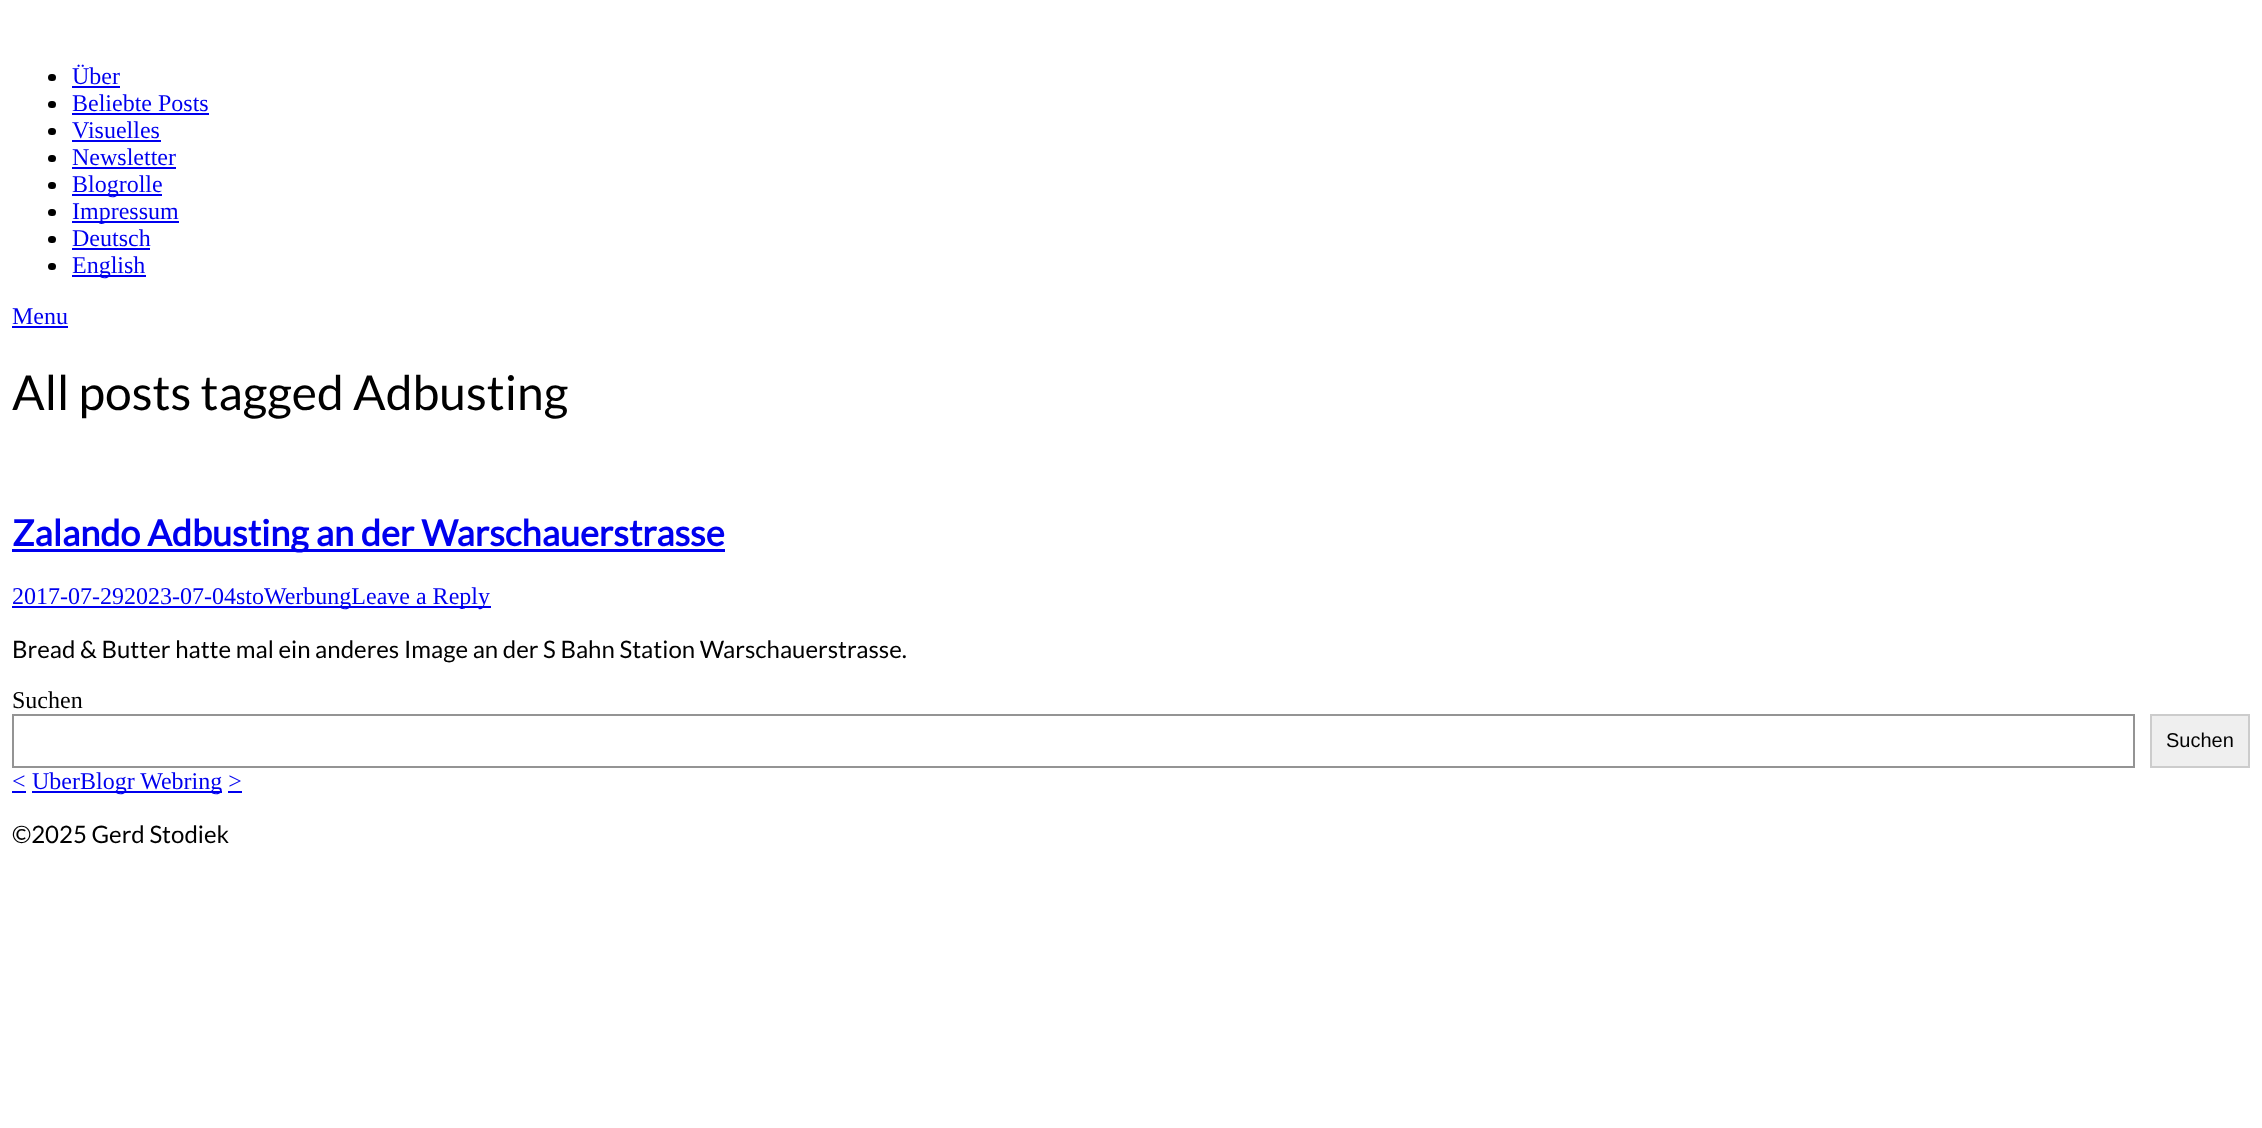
(async () => {
    const canvas = document.querySelector("canvas");
    canvas.width = 2262;
    canvas.height = 1128;
    const context = canvas.getContext("2d");
    context.miterLimit = 4;
    context.fontKerning = "normal";
    function write(s, x, y, font, color) {
        context.font = font;
        context.fillStyle = color;
        context.fillText(s, x, y);
    }
    function block(x, y, w, h, color) {
        context.fillStyle = color;
        context.fillRect(x, y, w, h);
    }
    function card(x, y, w, h, r, color) {
        context.fillStyle = color;
        context.beginPath();
        context.roundRect(x, y, w, h, r);
        context.fill();
    }

    block(0, 0, 2262, 1128, "rgb(255, 255, 255)");
    card(48, 74, 8, 7, 3.5, "rgb(0, 0, 0)");
    write("Über", 72, 84, "24px Liberation Serif", "rgb(0, 0, 238)");
    block(72, 86, 48, 2, "rgb(0, 0, 238)");
    card(48, 101, 8, 7, 3.5, "rgb(0, 0, 0)");
    write("Beliebte Posts", 72, 111, "24px Liberation Serif", "rgb(0, 0, 238)");
    block(72, 113, 137, 2, "rgb(0, 0, 238)");
    card(48, 128, 8, 7, 3.5, "rgb(0, 0, 0)");
    write("Visuelles", 72, 138, "24px Liberation Serif", "rgb(0, 0, 238)");
    block(72, 140, 89, 2, "rgb(0, 0, 238)");
    card(48, 155, 8, 7, 3.5, "rgb(0, 0, 0)");
    write("Newsletter", 72, 165, "24px Liberation Serif", "rgb(0, 0, 238)");
    block(72, 167, 104, 2, "rgb(0, 0, 238)");
    card(48, 182, 8, 7, 3.5, "rgb(0, 0, 0)");
    block(72, 194, 90, 2, "rgb(0, 0, 238)");
    write("Blogrolle", 72, 192, "24px Liberation Serif", "rgb(0, 0, 238)");
    card(48, 209, 8, 7, 3.5, "rgb(0, 0, 0)");
    block(72, 221, 107, 2, "rgb(0, 0, 238)");
    write("Impressum", 72, 219, "24px Liberation Serif", "rgb(0, 0, 238)");
    card(48, 236, 8, 7, 3.5, "rgb(0, 0, 0)");
    write("Deutsch", 72, 246, "24px Liberation Serif", "rgb(0, 0, 238)");
    block(72, 248, 78, 2, "rgb(0, 0, 238)");
    card(48, 263, 8, 7, 3.5, "rgb(0, 0, 0)");
    block(72, 275, 74, 2, "rgb(0, 0, 238)");
    write("English", 72, 273, "24px Liberation Serif", "rgb(0, 0, 238)");
    write("Menu", 12, 324, "24px Liberation Serif", "rgb(0, 0, 238)");
    block(12, 326, 56, 2, "rgb(0, 0, 238)");
    write("All posts tagged Adbusting", 12, 410, "48px Lato", "rgb(0, 0, 0)");
    block(12, 549, 713, 3, "rgb(0, 0, 238)");
    write("Zalando Adbusting an der Warschauerstrasse", 12, 546, "bold 36px Lato", "rgb(0, 0, 238)");
    block(12, 606, 479, 2, "rgb(0, 0, 238)");
    write("2017-07-292023-07-04stoWerbungLeave a Reply", 12, 604, "24px Liberation Serif", "rgb(0, 0, 238)");
    write("Bread & Butter hatte mal ein anderes Image an der S Bahn Station Warschauerstrasse.", 12, 658, "24px Lato", "rgb(0, 0, 0)");
    write("Suchen", 12, 708, "24px Liberation Serif", "rgb(0, 0, 0)");
    context.strokeStyle = "rgb(148, 148, 148)";
    context.lineWidth = 2;
    context.strokeRect(13, 715, 2121, 52);
    context.fillStyle = "rgb(239, 239, 239)";
    context.beginPath();
    context.rect(2151, 715, 98, 52);
    context.fill();
    context.strokeStyle = "rgb(204, 204, 204)";
    context.stroke();
    write("Suchen", 2166, 747, "20px Liberation Sans", "rgb(0, 0, 0)");
    write("<", 12, 789, "24px Liberation Serif", "rgb(0, 0, 238)");
    block(12, 791, 14, 2, "rgb(0, 0, 238)");
    block(32, 791, 190, 2, "rgb(0, 0, 238)");
    write("UberBlogr Webring >", 32, 789, "24px Liberation Serif", "rgb(0, 0, 238)");
    block(228, 791, 14, 2, "rgb(0, 0, 238)");
    write("©2025 Gerd Stodiek", 12, 843, "24px Lato", "rgb(0, 0, 0)");
})();
